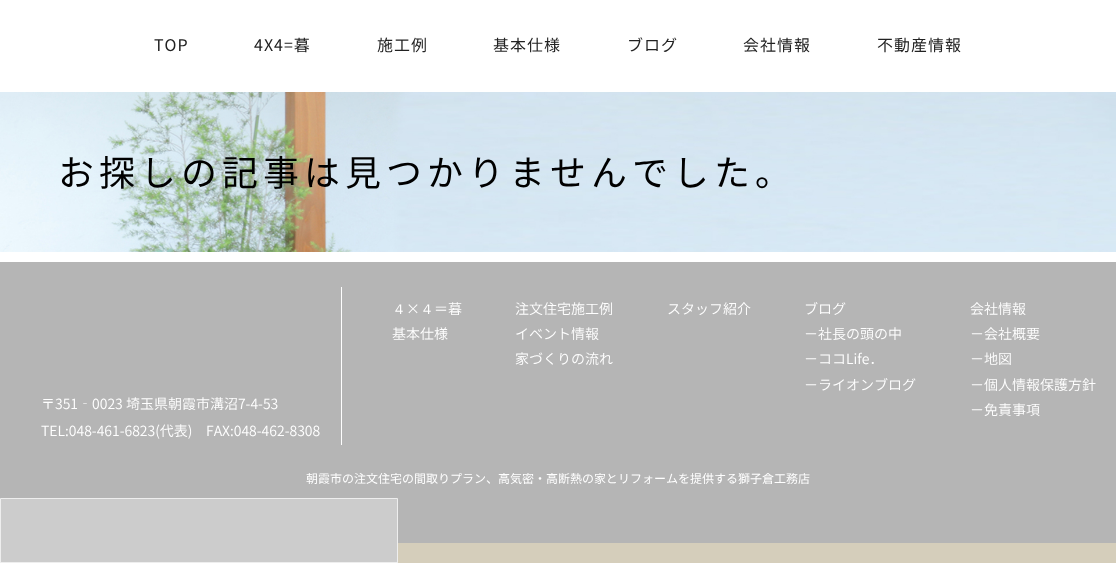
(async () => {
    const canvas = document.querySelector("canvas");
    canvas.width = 1116;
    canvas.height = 563;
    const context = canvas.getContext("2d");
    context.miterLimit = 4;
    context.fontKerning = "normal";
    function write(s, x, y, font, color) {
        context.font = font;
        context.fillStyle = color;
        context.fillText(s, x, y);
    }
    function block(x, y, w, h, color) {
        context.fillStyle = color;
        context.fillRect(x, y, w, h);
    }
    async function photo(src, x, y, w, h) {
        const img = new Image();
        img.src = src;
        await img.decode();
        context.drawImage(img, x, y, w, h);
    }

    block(0, 0, 1116, 563, "rgb(255, 255, 255)");
    context.letterSpacing = "1px";
    write("TOP", 154, 51, "16px Noto Sans CJK JP", "rgb(34, 34, 34)");
    write("4X4=暮", 254, 51, "16px Noto Sans CJK JP", "rgb(34, 34, 34)");
    write("施工例", 377, 51, "16px Noto Sans CJK JP", "rgb(34, 34, 34)");
    write("基本仕様", 493, 51, "16px Noto Sans CJK JP", "rgb(34, 34, 34)");
    write("ブログ", 627, 51, "16px Noto Sans CJK JP", "rgb(34, 34, 34)");
    write("会社情報", 743, 51, "16px Noto Sans CJK JP", "rgb(34, 34, 34)");
    write("不動産情報", 877, 51, "16px Noto Sans CJK JP", "rgb(34, 34, 34)");
    await photo("media/1.png", 0, 92, 1116, 160);
    context.letterSpacing = "5px";
    write("お探しの記事は見つかりませんでした。", 58, 186, "36px Noto Sans CJK JP", "rgb(0, 0, 0)");
    block(0, 262, 1116, 281, "rgb(181, 181, 181)");
    block(341, 287, 1, 158, "rgb(255, 255, 255)");
    context.letterSpacing = "0px";
    write("〒351‐0023 埼玉県朝霞市溝沼7-4-53", 41, 409, "300 14px Noto Sans CJK JP", "rgb(255, 255, 255)");
    write("TEL:048-461-6823(代表)", 41, 436, "300 14px Noto Sans CJK JP", "rgb(255, 255, 255)");
    write("FAX:048-462-8308", 206, 436, "300 14px Noto Sans CJK JP", "rgb(255, 255, 255)");
    write("４", 392, 314, "500 14px WenQuanYi Zen Hei", "rgb(255, 255, 255)");
    write("×", 406, 314, "300 14px Noto Sans CJK JP", "rgb(255, 255, 255)");
    write("４", 420, 314, "500 14px WenQuanYi Zen Hei", "rgb(255, 255, 255)");
    write("＝暮", 434, 314, "300 14px Noto Sans CJK JP", "rgb(255, 255, 255)");
    write("基本仕様", 392, 339, "300 14px Noto Sans CJK JP", "rgb(255, 255, 255)");
    write("注文住宅施工例", 515, 314, "300 14px Noto Sans CJK JP", "rgb(255, 255, 255)");
    write("イベント情報", 515, 339, "300 14px Noto Sans CJK JP", "rgb(255, 255, 255)");
    write("家づくりの流れ", 515, 364, "300 14px Noto Sans CJK JP", "rgb(255, 255, 255)");
    write("スタッフ紹介", 667, 314, "300 14px Noto Sans CJK JP", "rgb(255, 255, 255)");
    write("ブログ", 804, 314, "300 14px Noto Sans CJK JP", "rgb(255, 255, 255)");
    write("－社長の頭の中", 804, 339, "300 14px Noto Sans CJK JP", "rgb(255, 255, 255)");
    write("－ココLife．", 804, 364, "300 14px Noto Sans CJK JP", "rgb(255, 255, 255)");
    write("－ライオンブログ", 804, 390, "300 14px Noto Sans CJK JP", "rgb(255, 255, 255)");
    write("会社情報", 970, 314, "300 14px Noto Sans CJK JP", "rgb(255, 255, 255)");
    write("－会社概要", 970, 339, "300 14px Noto Sans CJK JP", "rgb(255, 255, 255)");
    write("－地図", 970, 364, "300 14px Noto Sans CJK JP", "rgb(255, 255, 255)");
    write("－個人情報保護方針", 970, 390, "300 14px Noto Sans CJK JP", "rgb(255, 255, 255)");
    write("－免責事項", 970, 415, "300 14px Noto Sans CJK JP", "rgb(255, 255, 255)");
    write("朝霞市の注文住宅の間取りプラン、高気密・高断熱の家とリフォームを提供する獅子倉工務店", 306, 483, "12px Noto Sans CJK JP", "rgb(255, 255, 255)");
    context.fillStyle = "rgb(204, 204, 204)";
    context.beginPath();
    context.rect(0.5, 498.5, 397, 64);
    context.fill();
    context.strokeStyle = "rgb(238, 238, 238)";
    context.stroke();
    block(398, 543, 718, 20, "rgb(213, 206, 187)");
})();
